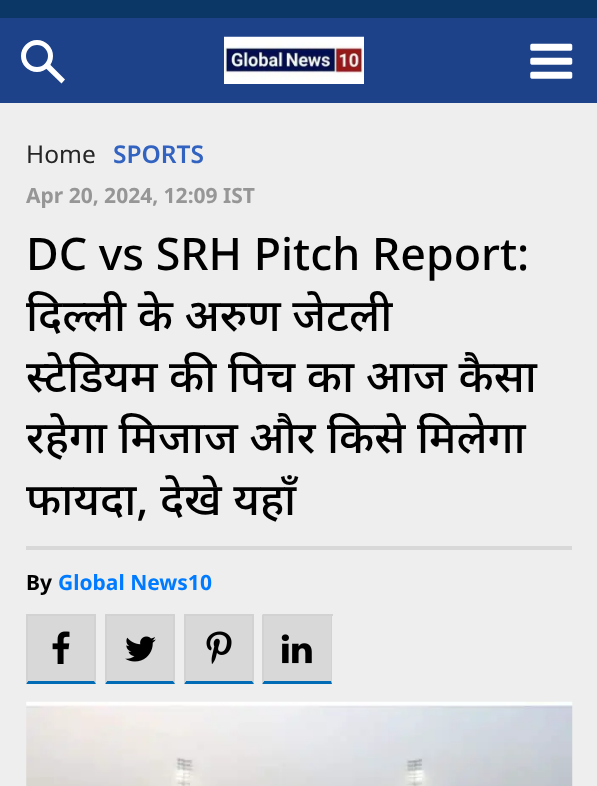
(async () => {
    const canvas = document.querySelector("canvas");
    canvas.width = 597;
    canvas.height = 786;
    const context = canvas.getContext("2d");
    context.miterLimit = 4;
    context.fontKerning = "normal";
    function write(s, x, y, font, color) {
        context.font = font;
        context.fillStyle = color;
        context.fillText(s, x, y);
    }
    function block(x, y, w, h, color) {
        context.fillStyle = color;
        context.fillRect(x, y, w, h);
    }
    async function photo(src, x, y, w, h) {
        const img = new Image();
        img.src = src;
        await img.decode();
        context.drawImage(img, x, y, w, h);
    }

    block(0, 0, 597, 786, "rgb(238, 238, 238)");
    block(0, 0, 597, 18, "rgb(10, 55, 101)");
    block(0, 18, 597, 85, "rgb(29, 66, 138)");
    context.beginPath();
    context.arc(37, 56, 13.5, 0, Math.PI * 2);
    context.strokeStyle = "rgb(255, 255, 255)";
    context.lineWidth = 5;
    context.stroke();
    context.fillStyle = "rgb(255, 255, 255)";
    context.beginPath();
    context.moveTo(49, 63.5);
    context.lineTo(65, 79.5);
    context.lineTo(61.5, 83.5);
    context.lineTo(45, 67.5);
    context.closePath();
    context.fill();
    await photo("media/1.png", 224, 36, 140, 48);
    await photo("media/2.png", 530, 43, 43, 36);
    write("Home", 26, 163, "24.5px Noto Sans", "rgb(37, 37, 37)");
    write("SPORTS", 113, 163, "600 24.5px Noto Sans", "rgb(50, 99, 192)");
    write("Apr 20, 2024, 12:09 IST", 26, 203, "bold 21px Noto Sans", "rgb(150, 150, 150)");
    write("DC vs SRH Pitch Report:", 26, 270, "500 44.75px Noto Sans", "rgb(0, 0, 0)");
    write("दिल्ली के अरुण जेटली", 26, 331, "500 44.75px Noto Sans", "rgb(0, 0, 0)");
    write("स्टेडियम की पिच का आज कैसा", 26, 392, "500 44.75px Noto Sans", "rgb(0, 0, 0)");
    write("रहेगा मिजाज और किसे मिलेगा", 26, 453, "500 44.75px Noto Sans", "rgb(0, 0, 0)");
    write("फायदा, देखे यहाँ", 26, 515, "500 44.75px Noto Sans", "rgb(0, 0, 0)");
    block(26, 546, 546, 4, "rgb(216, 216, 216)");
    write("By", 26, 590, "bold 21px Noto Sans", "rgb(0, 0, 0)");
    write("Global News10", 58, 590, "bold 21px Noto Sans", "rgb(0, 123, 255)");
    block(28, 616, 66, 65, "rgb(216, 216, 216)");
    block(26, 614, 70, 2, "rgb(210, 210, 210)");
    context.beginPath();
    context.moveTo(96, 614);
    context.lineTo(96, 684);
    context.lineTo(94, 681);
    context.lineTo(94, 616);
    context.closePath();
    context.fill();
    context.fillStyle = "rgb(2, 107, 182)";
    context.beginPath();
    context.moveTo(96, 684);
    context.lineTo(26, 684);
    context.lineTo(28, 681);
    context.lineTo(94, 681);
    context.closePath();
    context.fill();
    context.fillStyle = "rgb(210, 210, 210)";
    context.beginPath();
    context.moveTo(26, 684);
    context.lineTo(26, 614);
    context.lineTo(28, 616);
    context.lineTo(28, 681);
    context.closePath();
    context.fill();
    await photo("media/3.png", 52, 631, 18, 33);
    block(107, 616, 66, 65, "rgb(216, 216, 216)");
    block(105, 614, 70, 2, "rgb(210, 210, 210)");
    context.beginPath();
    context.moveTo(175, 614);
    context.lineTo(175, 684);
    context.lineTo(173, 681);
    context.lineTo(173, 616);
    context.closePath();
    context.fill();
    context.fillStyle = "rgb(2, 107, 182)";
    context.beginPath();
    context.moveTo(175, 684);
    context.lineTo(105, 684);
    context.lineTo(107, 681);
    context.lineTo(173, 681);
    context.closePath();
    context.fill();
    context.fillStyle = "rgb(210, 210, 210)";
    context.beginPath();
    context.moveTo(105, 684);
    context.lineTo(105, 614);
    context.lineTo(107, 616);
    context.lineTo(107, 681);
    context.closePath();
    context.fill();
    await photo("media/4.png", 125, 636, 31, 26);
    block(186, 616, 66, 65, "rgb(216, 216, 216)");
    block(184, 614, 70, 2, "rgb(210, 210, 210)");
    context.beginPath();
    context.moveTo(254, 614);
    context.lineTo(254, 684);
    context.lineTo(252, 681);
    context.lineTo(252, 616);
    context.closePath();
    context.fill();
    context.fillStyle = "rgb(2, 107, 182)";
    context.beginPath();
    context.moveTo(254, 684);
    context.lineTo(184, 684);
    context.lineTo(186, 681);
    context.lineTo(252, 681);
    context.closePath();
    context.fill();
    context.fillStyle = "rgb(210, 210, 210)";
    context.beginPath();
    context.moveTo(184, 684);
    context.lineTo(184, 614);
    context.lineTo(186, 616);
    context.lineTo(186, 681);
    context.closePath();
    context.fill();
    await photo("media/5.png", 206, 631, 26, 33);
    block(264, 616, 67, 65, "rgb(216, 216, 216)");
    block(263, 614, 70, 2, "rgb(210, 210, 210)");
    context.beginPath();
    context.moveTo(332, 614);
    context.lineTo(332, 684);
    context.lineTo(331, 681);
    context.lineTo(331, 616);
    context.closePath();
    context.fill();
    context.fillStyle = "rgb(2, 107, 182)";
    context.beginPath();
    context.moveTo(332, 684);
    context.lineTo(262, 684);
    context.lineTo(264, 681);
    context.lineTo(331, 681);
    context.closePath();
    context.fill();
    context.fillStyle = "rgb(210, 210, 210)";
    context.beginPath();
    context.moveTo(262, 684);
    context.lineTo(262, 614);
    context.lineTo(264, 616);
    context.lineTo(264, 681);
    context.closePath();
    context.fill();
    await photo("media/6.png", 281, 634, 31, 30);
    await photo("media/7.png", 26, 701, 547, 85);
})();
